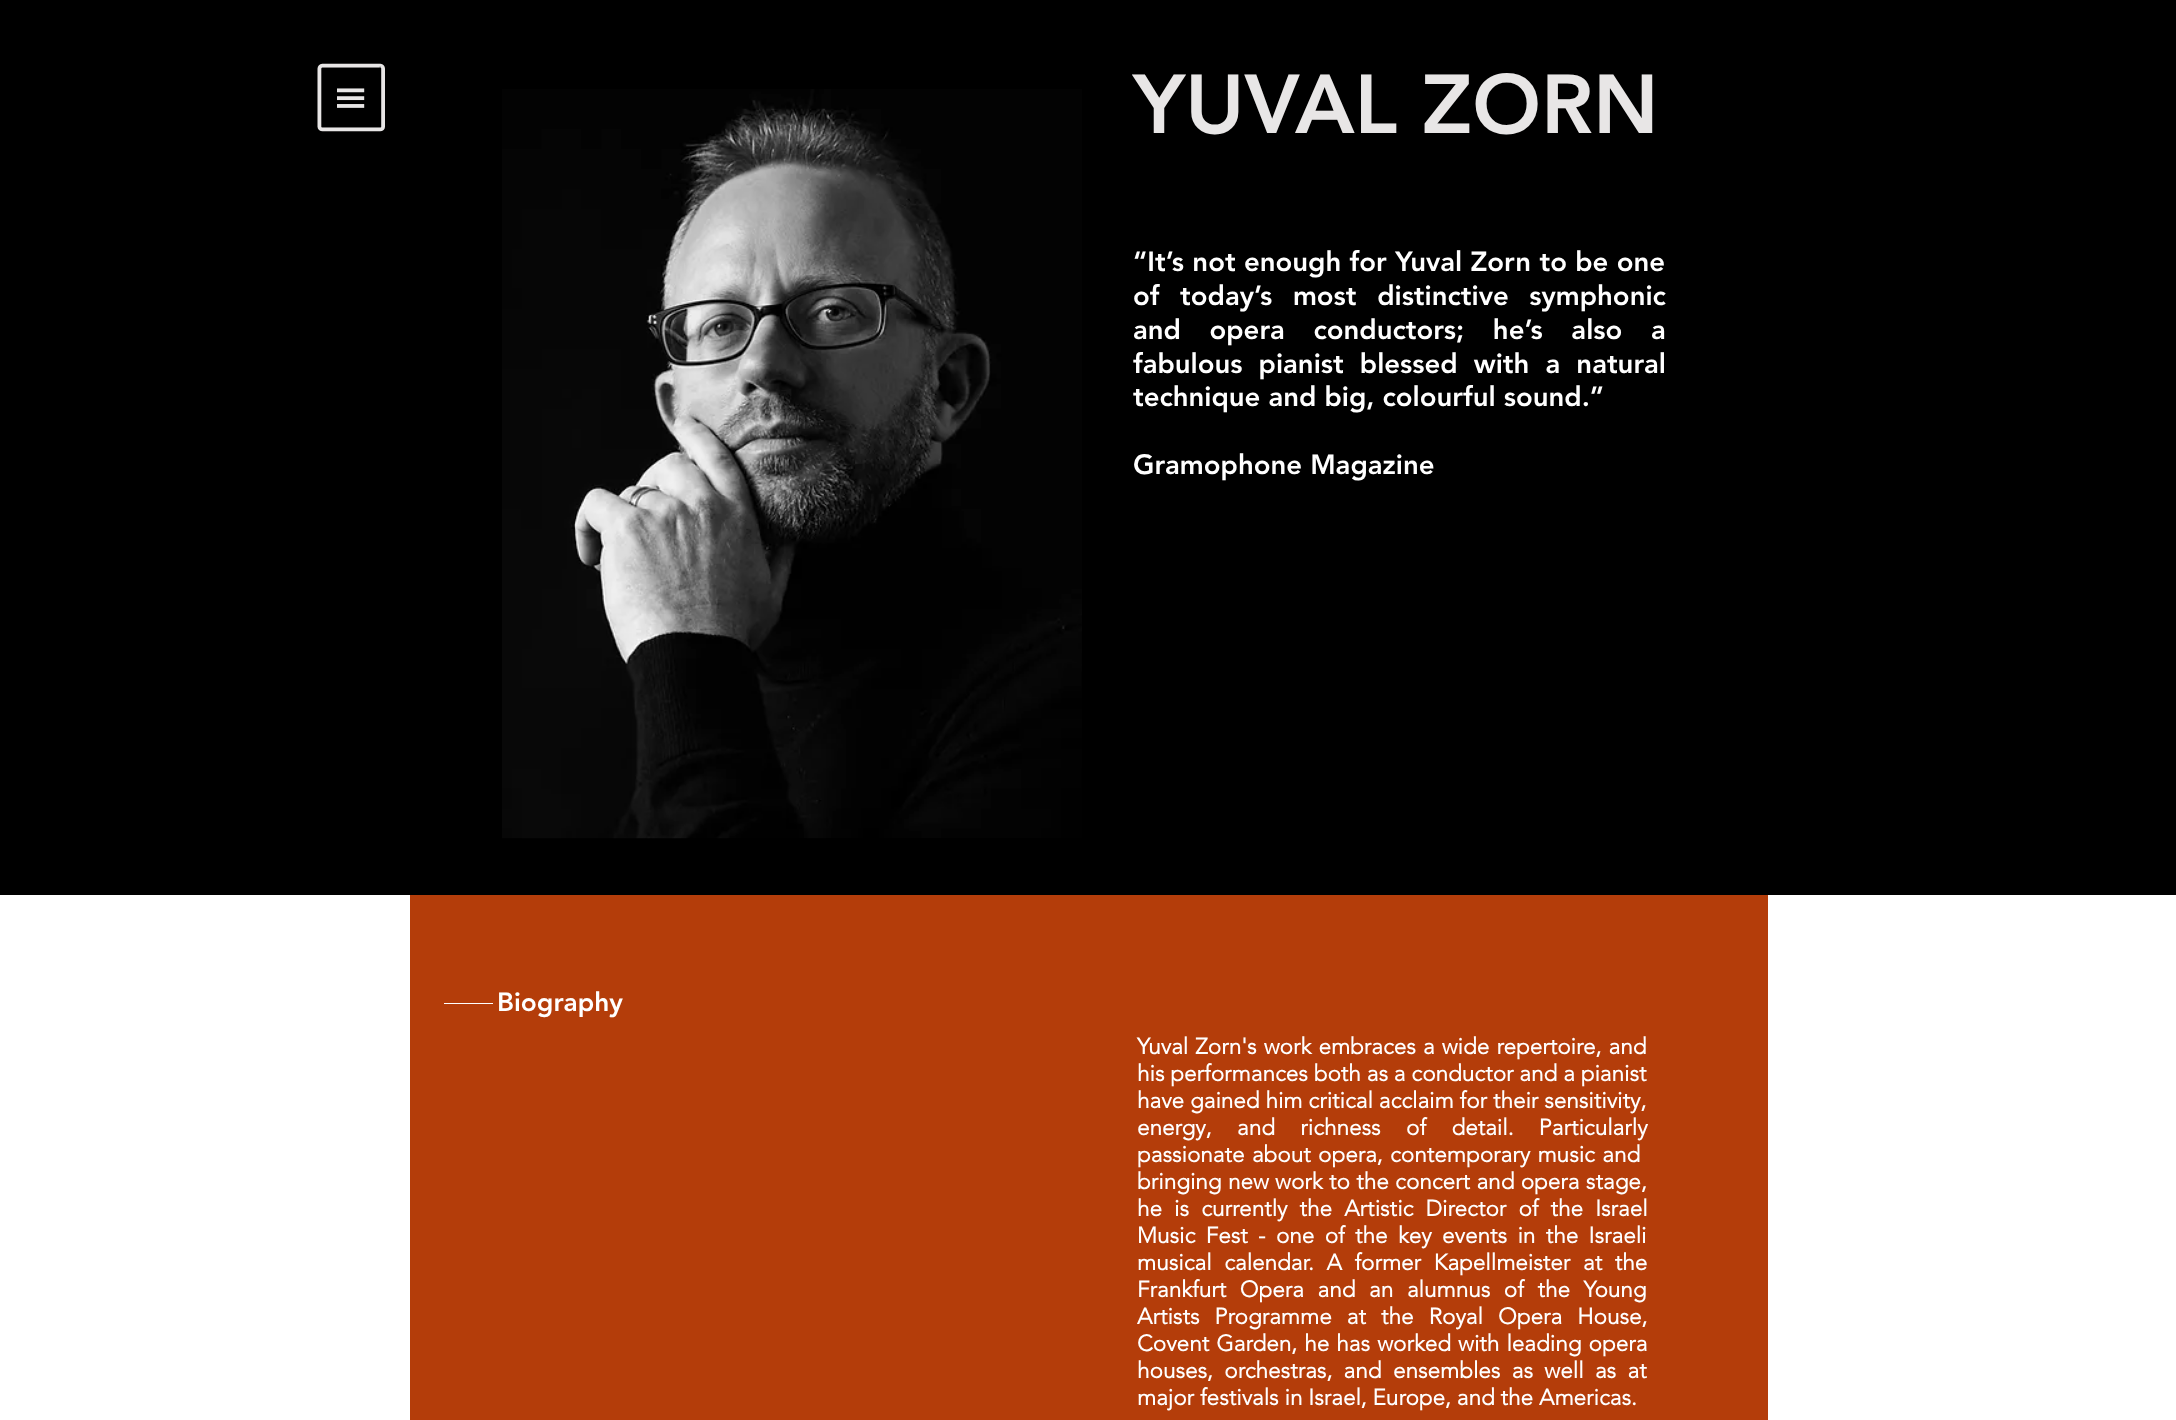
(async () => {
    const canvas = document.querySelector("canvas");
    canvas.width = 2176;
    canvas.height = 1420;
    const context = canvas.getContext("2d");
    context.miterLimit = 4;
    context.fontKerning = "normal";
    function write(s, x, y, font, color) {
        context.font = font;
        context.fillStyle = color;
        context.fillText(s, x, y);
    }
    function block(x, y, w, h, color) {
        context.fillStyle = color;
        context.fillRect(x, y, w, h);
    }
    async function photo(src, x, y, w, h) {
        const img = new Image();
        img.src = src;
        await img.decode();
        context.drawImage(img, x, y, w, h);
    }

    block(0, 0, 2176, 1420, "rgb(255, 255, 255)");
    block(0, 0, 2176, 895, "rgb(0, 0, 0)");
    await photo("media/1.png", 317, 63, 68, 69);
    await photo("media/2.png", 502, 89, 580, 750);
    write("YUVAL ZORN", 1133, 133, "900 82.5px 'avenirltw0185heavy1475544'", "rgb(232, 230, 230)");
    context.wordSpacing = "0.25px";
    write("“It’s not enough for Yuval Zorn to be one", 1133, 271, "900 27.5px 'avenirltw0185heavy1475544'", "rgb(255, 255, 255)");
    context.wordSpacing = "12.5px";
    write("of today’s most distinctive symphonic", 1133, 305, "900 27.5px 'avenirltw0185heavy1475544'", "rgb(255, 255, 255)");
    context.wordSpacing = "20.5px";
    write("and opera conductors; he’s also a", 1133, 339, "900 27.5px 'avenirltw0185heavy1475544'", "rgb(255, 255, 255)");
    context.wordSpacing = "8px";
    write("fabulous pianist blessed with a natural", 1133, 373, "900 27.5px 'avenirltw0185heavy1475544'", "rgb(255, 255, 255)");
    context.wordSpacing = "0px";
    write("technique and big, colourful sound.”", 1133, 406, "900 27.5px 'avenirltw0185heavy1475544'", "rgb(255, 255, 255)");
    write("Gramophone Magazine", 1133, 474, "900 27.5px 'avenirltw0185heavy1475544'", "rgb(255, 255, 255)");
    block(410, 895, 1358, 525, "rgb(180, 61, 10)");
    block(444, 1003, 49, 1, "rgb(255, 255, 255)");
    write("Biography", 497, 1011, "900 26.25px 'avenirltw0185heavy1475544'", "rgb(255, 255, 255)");
    context.wordSpacing = "1.25px";
    write("Yuval Zorn's work embraces a wide repertoire, and", 1137, 1054, "bold 22.5px 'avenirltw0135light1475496'", "rgb(255, 255, 255)");
    context.wordSpacing = "0px";
    write("his performances both as a conductor and a pianist", 1137, 1081, "bold 22.5px 'avenirltw0135light1475496'", "rgb(255, 255, 255)");
    write("have gained him critical acclaim for their sensitivity,", 1137, 1108, "bold 22.5px 'avenirltw0135light1475496'", "rgb(255, 255, 255)");
    context.wordSpacing = "19.5px";
    write("energy, and richness of detail. Particularly", 1137, 1135, "bold 22.5px 'avenirltw0135light1475496'", "rgb(255, 255, 255)");
    context.wordSpacing = "1.5px";
    write("passionate about opera, contemporary music and", 1137, 1162, "bold 22.5px 'avenirltw0135light1475496'", "rgb(255, 255, 255)");
    context.wordSpacing = "0.5px";
    write("bringing new work to the concert and opera stage,", 1137, 1189, "bold 22.5px 'avenirltw0135light1475496'", "rgb(255, 255, 255)");
    context.wordSpacing = "6.25px";
    write("he is currently the Artistic Director of the Israel", 1137, 1216, "bold 22.5px 'avenirltw0135light1475496'", "rgb(255, 255, 255)");
    context.wordSpacing = "4.5px";
    write("Music Fest - one of the key events in the Israeli", 1137, 1243, "bold 22.5px 'avenirltw0135light1475496'", "rgb(255, 255, 255)");
    context.wordSpacing = "6.75px";
    write("musical calendar. A former Kapellmeister at the", 1137, 1270, "bold 22.5px 'avenirltw0135light1475496'", "rgb(255, 255, 255)");
    context.wordSpacing = "7.75px";
    write("Frankfurt Opera and an alumnus of the Young", 1137, 1297, "bold 22.5px 'avenirltw0135light1475496'", "rgb(255, 255, 255)");
    context.wordSpacing = "9.25px";
    write("Artists Programme at the Royal Opera House,", 1137, 1324, "bold 22.5px 'avenirltw0135light1475496'", "rgb(255, 255, 255)");
    context.wordSpacing = "1.25px";
    write("Covent Garden, he has worked with leading opera", 1137, 1351, "bold 22.5px 'avenirltw0135light1475496'", "rgb(255, 255, 255)");
    context.wordSpacing = "5.5px";
    write("houses, orchestras, and ensembles as well as at", 1137, 1378, "bold 22.5px 'avenirltw0135light1475496'", "rgb(255, 255, 255)");
    context.wordSpacing = "0px";
    write("major festivals in Israel, Europe, and the Americas.", 1137, 1405, "bold 22.5px 'avenirltw0135light1475496'", "rgb(255, 255, 255)");
})();
